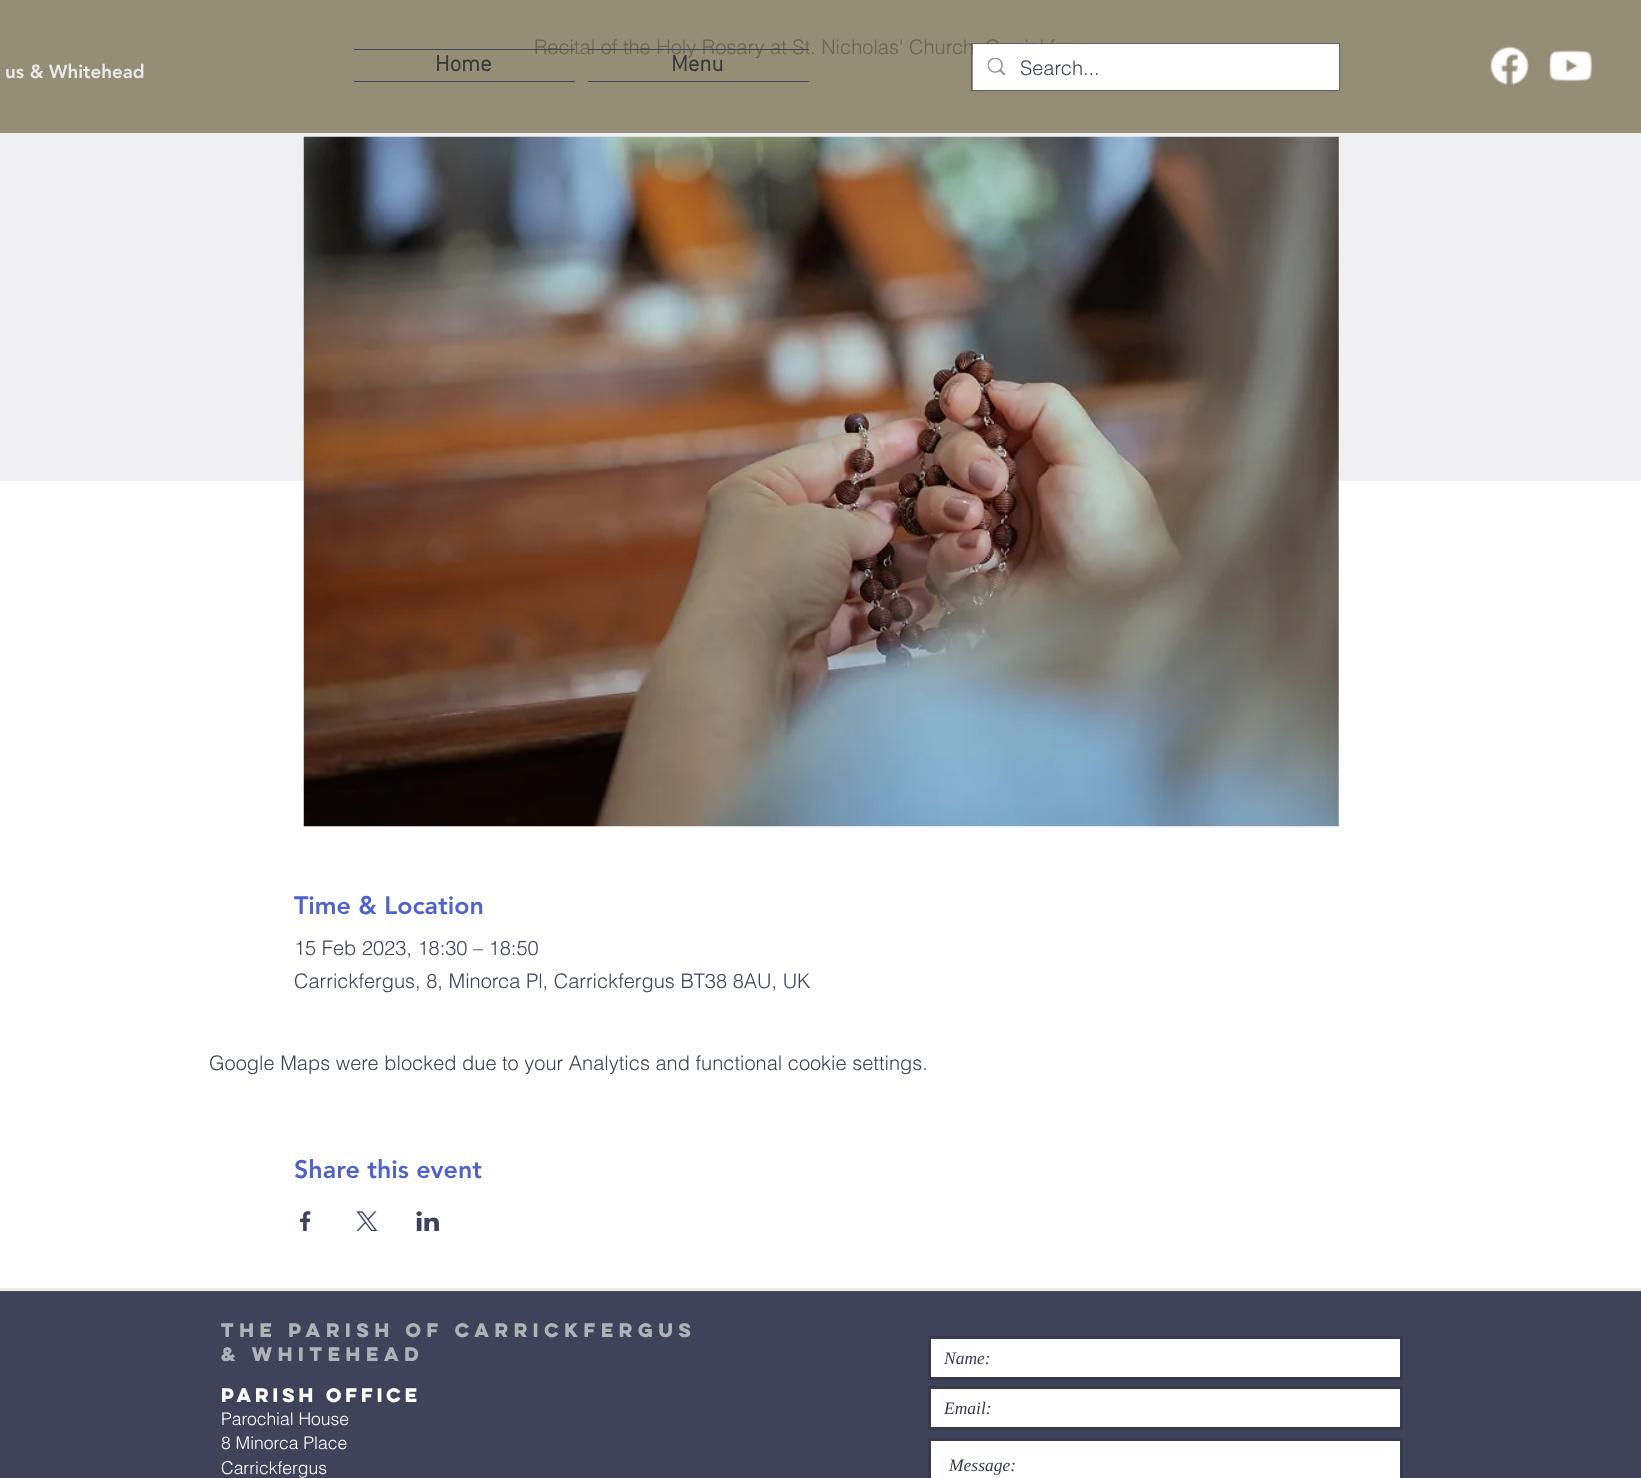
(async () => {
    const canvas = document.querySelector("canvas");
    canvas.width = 1641;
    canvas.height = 1478;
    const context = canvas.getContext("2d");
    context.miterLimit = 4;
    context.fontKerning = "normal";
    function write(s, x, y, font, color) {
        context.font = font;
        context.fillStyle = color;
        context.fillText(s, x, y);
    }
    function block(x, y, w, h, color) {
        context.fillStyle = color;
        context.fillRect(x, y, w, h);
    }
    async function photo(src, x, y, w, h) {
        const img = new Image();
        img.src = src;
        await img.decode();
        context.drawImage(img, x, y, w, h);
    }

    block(0, 0, 1641, 1478, "rgb(234, 234, 234)");
    block(0, 133, 1641, 348, "rgb(240, 240, 242)");
    block(0, 0, 1641, 133, "rgb(149, 142, 119)");
    write("Recital of the Holy Rosary at St. Nicholas' Church, Carrickfer", 534, 54, "300 20px helvetica", "rgb(105, 99, 81)");
    block(0, 481, 1641, 807, "rgb(255, 255, 255)");
    await photo("media/1.png", 303, 136, 1036, 691);
    write("Time & Location", 294, 914, "900 25px 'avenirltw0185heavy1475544'", "rgb(79, 99, 201)");
    write("15 Feb 2023, 18:30 – 18:50", 294, 955, "300 20px helvetica", "rgb(63, 67, 89)");
    write("Carrickfergus, 8, Minorca Pl, Carrickfergus BT38 8AU, UK", 294, 988, "300 20px helvetica", "rgb(63, 67, 89)");
    write("Google Maps were blocked due to your Analytics and functional cookie settings.", 209, 1070, "300 20px helvetica", "rgb(63, 67, 89)");
    write("Share this event", 294, 1178, "900 25px 'avenirltw0185heavy1475544'", "rgb(79, 99, 201)");
    await photo("media/2.png", 300, 1211, 11, 20);
    await photo("media/3.png", 356, 1211, 22, 20);
    await photo("media/4.png", 416, 1211, 23, 20);
    write("us & Whitehead", 5, 78, "900 18.75px 'avenirltw0185heavy1475544'", "rgb(234, 234, 234)");
    block(354, 49, 221, 1, "rgb(63, 67, 89)");
    block(354, 81, 221, 1, "rgb(63, 67, 89)");
    write("Home", 435, 71, "bold 22.5px 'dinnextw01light'", "rgb(56, 56, 56)");
    block(588, 49, 221, 1, "rgb(63, 67, 89)");
    block(588, 81, 221, 1, "rgb(63, 67, 89)");
    write("Menu", 671, 71, "bold 22.5px 'dinnextw01light'", "rgb(56, 56, 56)");
    context.strokeStyle = "rgba(63, 67, 89, 0.6)";
    context.strokeRect(971.5, 43.5, 368, 47);
    block(973, 44, 366, 46, "rgb(255, 255, 255)");
    await photo("media/5.png", 988, 58, 17, 18);
    write("Search...", 1020, 75, "300 20px helvetica", "rgb(63, 67, 89)");
    await photo("media/6.png", 1490, 46, 39, 39);
    await photo("media/7.png", 1549, 50, 44, 32);
    block(0, 1291, 1641, 187, "rgb(63, 67, 89)");
    context.letterSpacing = "1.75px";
    write("The Parish of Carrickfergus", 221, 1337, "bold 17.5px 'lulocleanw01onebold'", "rgb(176, 178, 184)");
    write("& Whitehead", 221, 1361, "bold 17.5px 'lulocleanw01onebold'", "rgb(176, 178, 184)");
    context.letterSpacing = "0px";
    write("Parish Office", 221, 1402, "bold 17.5px 'lulocleanw01onebold'", "rgb(255, 255, 255)");
    write("Parochial House", 221, 1425, "300 17.5px helvetica", "rgb(255, 255, 255)");
    write("8 Minorca Place", 221, 1449, "300 17.5px helvetica", "rgb(255, 255, 255)");
    write("Carrickfergus", 221, 1474, "300 17.5px helvetica", "rgb(255, 255, 255)");
    context.beginPath();
    context.rect(929.5, 1337.5, 472, 41);
    context.fill();
    context.strokeStyle = "rgb(55, 59, 77)";
    context.lineWidth = 3;
    context.stroke();
    write("Name:", 944, 1364, "italic 17.5px Liberation Serif", "rgb(55, 59, 77)");
    context.fillStyle = "rgb(255, 255, 255)";
    context.beginPath();
    context.rect(929.5, 1387.5, 472, 41);
    context.fill();
    context.stroke();
    write("Email:", 944, 1414, "italic 17.5px Liberation Serif", "rgb(55, 59, 77)");
    context.fillStyle = "rgb(255, 255, 255)";
    context.beginPath();
    context.rect(929.5, 1439.5, 472, 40);
    context.fill();
    context.stroke();
    write("Message:", 949, 1471, "italic 17.5px Liberation Serif", "rgb(55, 59, 77)");
})();
